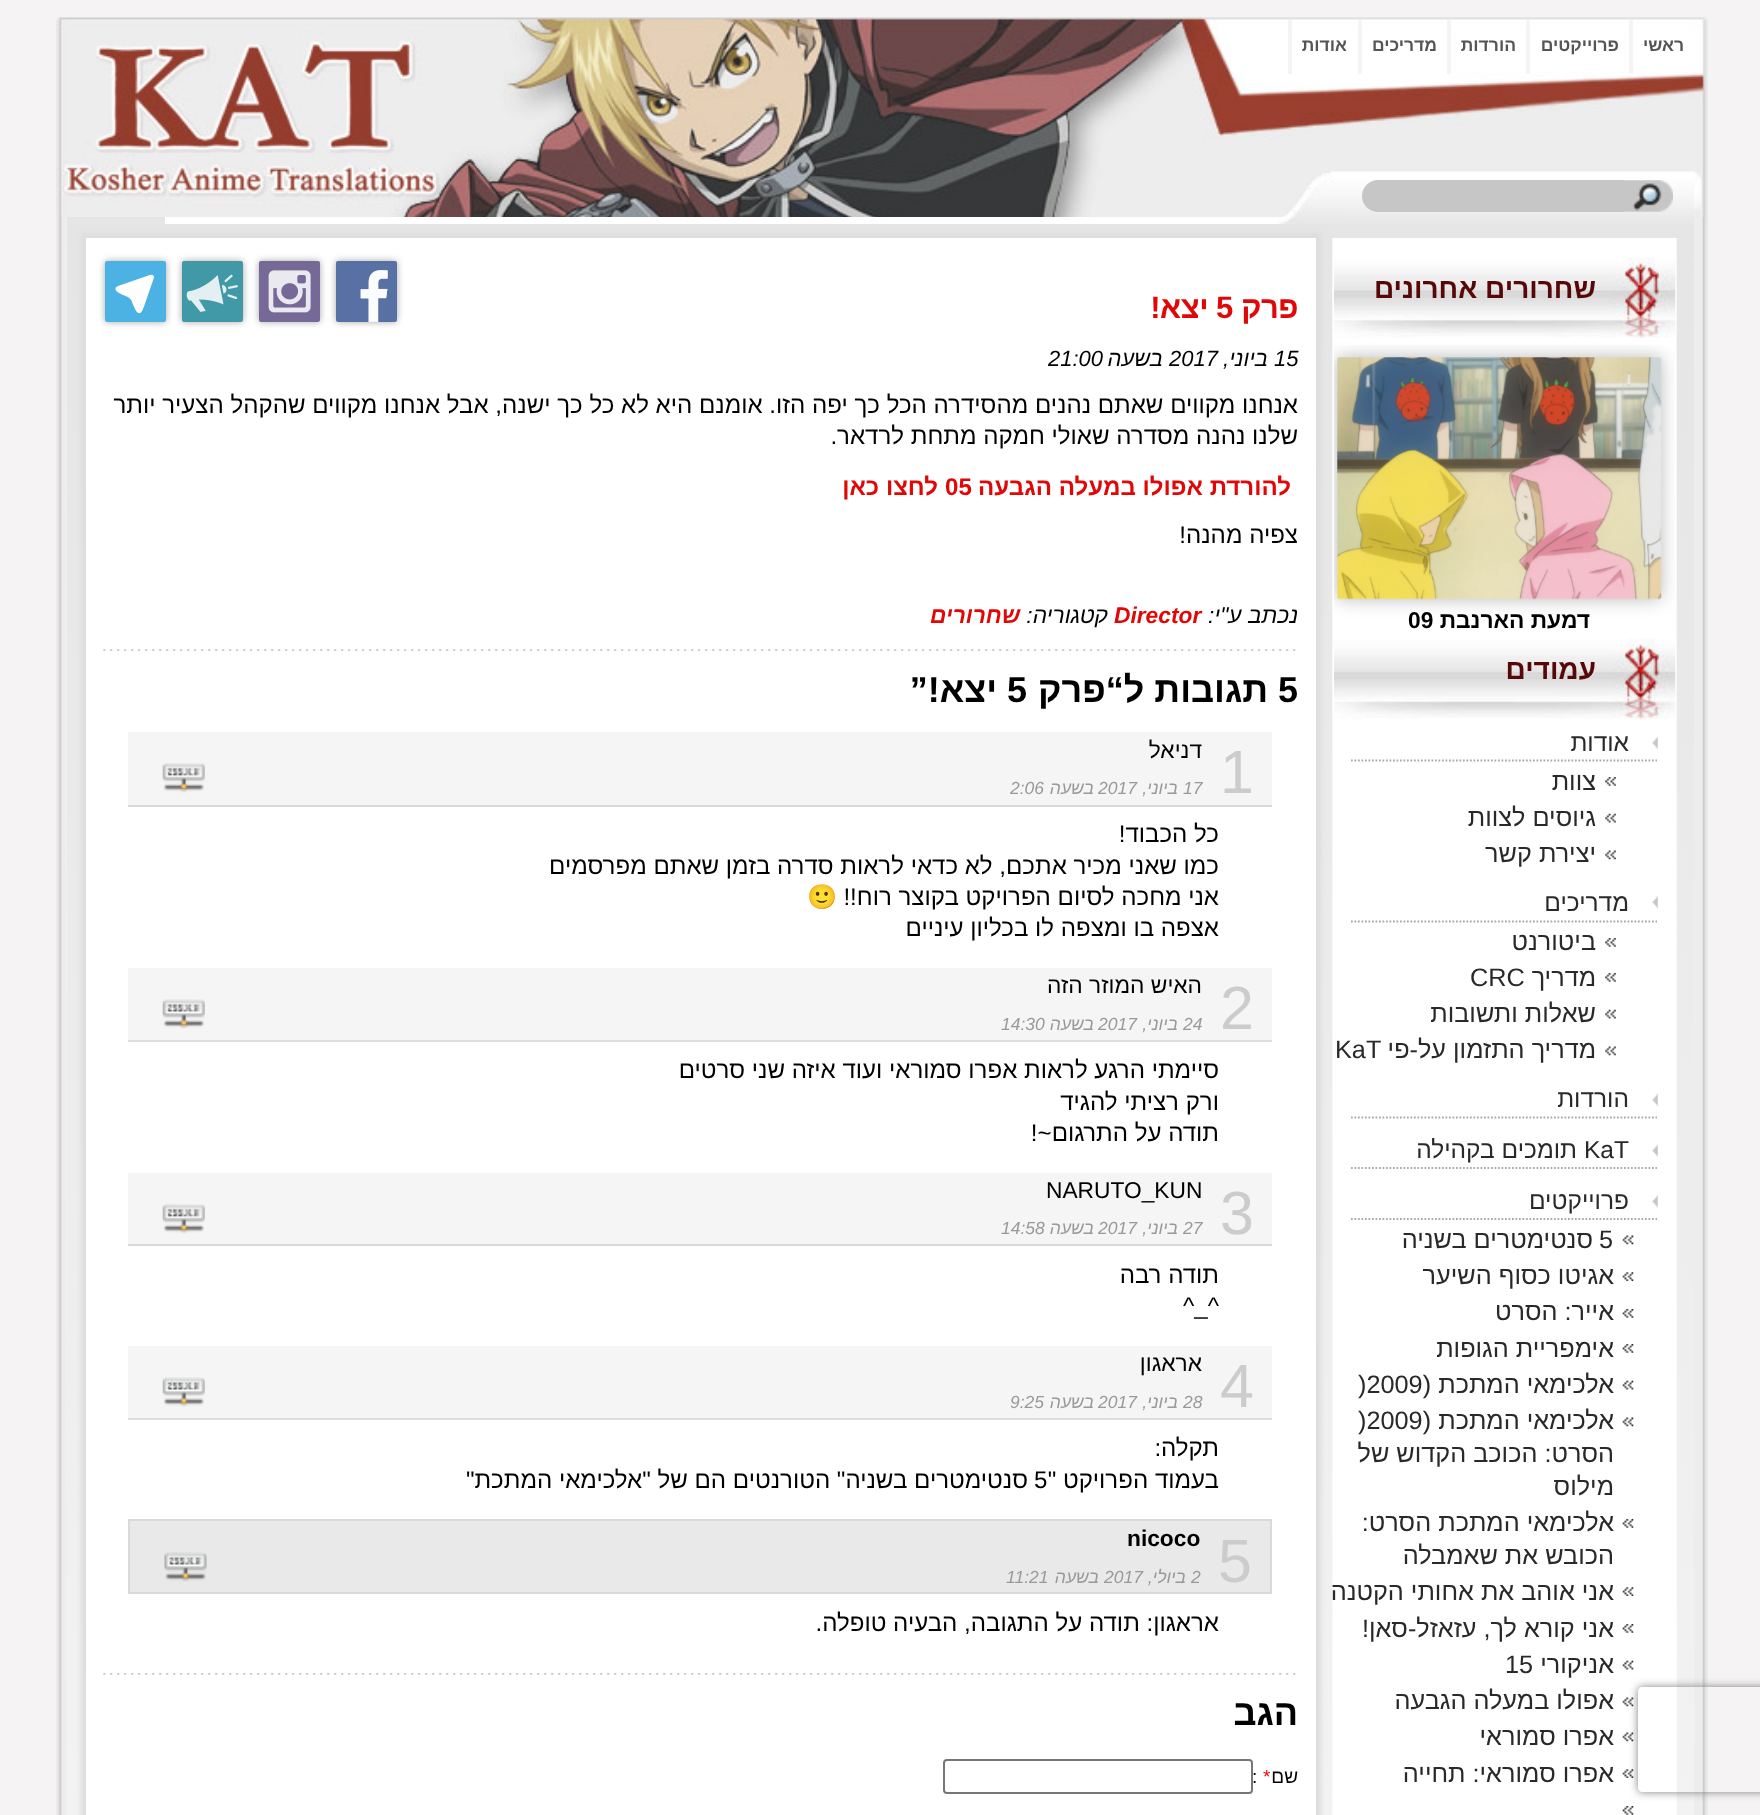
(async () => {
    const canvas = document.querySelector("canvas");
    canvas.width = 1760;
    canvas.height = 1815;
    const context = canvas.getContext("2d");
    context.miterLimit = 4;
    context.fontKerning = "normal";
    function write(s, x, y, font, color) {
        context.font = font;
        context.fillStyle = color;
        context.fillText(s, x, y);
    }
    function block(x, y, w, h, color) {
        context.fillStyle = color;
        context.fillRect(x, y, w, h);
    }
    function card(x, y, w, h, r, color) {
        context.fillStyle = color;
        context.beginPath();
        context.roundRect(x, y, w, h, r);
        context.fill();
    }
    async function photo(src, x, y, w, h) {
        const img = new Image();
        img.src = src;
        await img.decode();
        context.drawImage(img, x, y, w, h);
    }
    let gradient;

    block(0, 0, 1760, 1815, "rgb(255, 255, 255)");
    await photo("media/1.png", 0, 0, 1760, 1815);
    await photo("media/4.png", 1694, 217, 14, 1598);
    gradient = context.createLinearGradient(67, 217, 67, 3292);
    gradient.addColorStop(0, "rgb(229, 229, 229)");
    gradient.addColorStop(1, "rgb(255, 255, 255)");
    context.fillStyle = gradient;
    context.fillRect(67, 217, 1627, 1598);
    await photo("media/9.png", 1332, 238, 345, 1577);
    await photo("media/20.png", 1622, 1697, 12, 10);
    await photo("media/20.png", 1622, 1732, 12, 10);
    await photo("media/21.png", 1622, 1769, 12, 9);
    await photo("media/22.png", 1622, 1806, 12, 9);
    context.save();
    context.beginPath();
    context.moveTo(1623, 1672);
    context.lineTo(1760, 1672);
    context.lineTo(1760, 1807);
    context.lineTo(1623, 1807);
    context.closePath();
    context.moveTo(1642, 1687);
    context.lineTo(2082, 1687);
    context.bezierCurveTo(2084, 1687, 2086, 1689, 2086, 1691);
    context.lineTo(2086, 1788);
    context.bezierCurveTo(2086, 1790, 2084, 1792, 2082, 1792);
    context.lineTo(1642, 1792);
    context.bezierCurveTo(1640, 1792, 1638, 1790, 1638, 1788);
    context.lineTo(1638, 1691);
    context.bezierCurveTo(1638, 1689, 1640, 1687, 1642, 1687);
    context.closePath();
    context.clip("evenodd");
    context.fillStyle = "rgb(128, 128, 128)";
    context.filter = "blur(4.5px)";
    context.beginPath();
    context.roundRect(1638, 1687, 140, 105, 4);
    context.fill();
    context.filter = "none";
    context.restore();
    await photo("media/2.png", 56, 17, 1652, 200);
    block(1629, 19, 4, 55, "rgb(245, 243, 244)");
    context.direction = "rtl";
    write("ראשי", 1684, 51, "bold 17.5px Liberation Sans", "rgb(85, 85, 89)");
    block(1526, 19, 4, 55, "rgb(245, 243, 244)");
    write("פרוייקטים", 1619, 51, "bold 17.5px Liberation Sans", "rgb(85, 85, 89)");
    block(1447, 19, 4, 55, "rgb(245, 243, 244)");
    write("הורדות", 1516, 51, "bold 17.5px Liberation Sans", "rgb(85, 85, 89)");
    block(1358, 19, 4, 55, "rgb(245, 243, 244)");
    write("מדריכים", 1437, 51, "bold 17.5px Liberation Sans", "rgb(85, 85, 89)");
    block(1288, 19, 4, 55, "rgb(245, 243, 244)");
    write("אודות", 1347, 51, "bold 17.5px Liberation Sans", "rgb(85, 85, 89)");
    await photo("media/3.png", 56, 217, 11, 1598);
    block(165, 217, 1123, 7, "rgb(255, 255, 255)");
    await photo("media/5.png", 1279, 171, 65, 53);
    await photo("media/6.png", 1694, 171, 8, 40);
    await photo("media/7.png", 1344, 171, 350, 53);
    await photo("media/8.png", 1624, 180, 49, 32);
    context.fillStyle = "rgb(198, 198, 198)";
    context.beginPath();
    context.roundRect(1362, 180, 262, 32, [16, 0, 0, 16]);
    context.fill();
    await photo("media/10.png", 1334, 257, 342, 81);
    write("שחרורים אחרונים", 1596, 298, "bold 28px Liberation Sans", "rgb(87, 7, 7)");
    context.fillStyle = "rgb(221, 221, 221)";
    context.filter = "blur(2.5px)";
    context.beginPath();
    context.rect(81, 233, 1240, 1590);
    context.fill();
    context.filter = "none";
    block(86, 238, 1230, 1577, "rgb(255, 255, 255)");
    context.save();
    context.beginPath();
    context.rect(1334, 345, 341, 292);
    context.clip();
    context.fillStyle = "rgb(187, 187, 187)";
    context.filter = "blur(9px)";
    context.beginPath();
    context.roundRect(1337, 357, 324, 242, 2);
    context.fill();
    context.filter = "none";
    context.restore();
    await photo("media/11.png", 1337, 357, 325, 243);
    write("דמעת הארנבת", 1590, 628, "bold 22.75px Liberation Sans", "rgb(0, 0, 0)");
    context.direction = "ltr";
    write("09", 1408, 628, "bold 22.75px Liberation Sans", "rgb(0, 0, 0)");
    await photo("media/12.png", 1334, 638, 342, 82);
    context.direction = "rtl";
    write("עמודים", 1596, 679, "bold 28px Liberation Sans", "rgb(87, 7, 7)");
    await photo("media/13.png", 1652, 736, 6, 13);
    context.beginPath();
    context.moveTo(1351, 760.5);
    context.lineTo(1657, 760.5);
    context.strokeStyle = "rgb(170, 170, 170)";
    context.lineWidth = 1.8;
    context.setLineDash([1.75, 1.75]);
    context.stroke();
    write("אודות", 1629, 751, "24.5px Liberation Sans", "rgb(42, 41, 41)");
    await photo("media/14.png", 1605, 777, 11, 9);
    write("צוות", 1596, 790, "25.25px Liberation Sans", "rgb(42, 41, 41)");
    await photo("media/15.png", 1605, 813, 11, 10);
    write("גיוסים לצוות", 1596, 826, "25.25px Liberation Sans", "rgb(42, 41, 41)");
    await photo("media/16.png", 1605, 850, 11, 10);
    write("יצירת קשר", 1596, 862, "25.25px Liberation Sans", "rgb(42, 41, 41)");
    await photo("media/17.png", 1652, 896, 6, 13);
    context.beginPath();
    context.moveTo(1351, 921.5);
    context.lineTo(1657, 921.5);
    context.stroke();
    write("מדריכים", 1629, 911, "24.5px Liberation Sans", "rgb(42, 41, 41)");
    await photo("media/14.png", 1605, 938, 11, 9);
    write("ביטורנט", 1596, 950, "25.25px Liberation Sans", "rgb(42, 41, 41)");
    await photo("media/14.png", 1605, 973, 11, 9);
    write("מדריך", 1596, 986, "25.25px Liberation Sans", "rgb(42, 41, 41)");
    context.direction = "ltr";
    write("CRC", 1470, 986, "25.25px Liberation Sans", "rgb(42, 41, 41)");
    await photo("media/15.png", 1605, 1009, 11, 10);
    context.direction = "rtl";
    write("שאלות ותשובות", 1596, 1022, "25.25px Liberation Sans", "rgb(42, 41, 41)");
    await photo("media/16.png", 1605, 1046, 11, 10);
    write("מדריך התזמון על-פי", 1596, 1058, "25.25px Liberation Sans", "rgb(42, 41, 41)");
    context.direction = "ltr";
    write("KaT", 1335, 1058, "25.25px Liberation Sans", "rgb(42, 41, 41)");
    await photo("media/13.png", 1652, 1093, 6, 13);
    context.beginPath();
    context.moveTo(1351, 1117.5);
    context.lineTo(1657, 1117.5);
    context.stroke();
    context.direction = "rtl";
    write("הורדות", 1629, 1107, "24.5px Liberation Sans", "rgb(42, 41, 41)");
    await photo("media/18.png", 1652, 1144, 6, 13);
    context.beginPath();
    context.moveTo(1351, 1168);
    context.lineTo(1657, 1168);
    context.stroke();
    context.direction = "ltr";
    write("KaT", 1584, 1158, "24.5px Liberation Sans", "rgb(42, 41, 41)");
    context.direction = "rtl";
    write("תומכים בקהילה", 1577, 1158, "24.5px Liberation Sans", "rgb(42, 41, 41)");
    await photo("media/19.png", 1652, 1195, 6, 13);
    context.beginPath();
    context.moveTo(1351, 1219);
    context.lineTo(1657, 1219);
    context.stroke();
    write("פרוייקטים", 1629, 1209, "24.5px Liberation Sans", "rgb(42, 41, 41)");
    await photo("media/20.png", 1622, 1235, 12, 10);
    context.direction = "ltr";
    write("5", 1599, 1248, "25.25px Liberation Sans", "rgb(42, 41, 41)");
    context.direction = "rtl";
    write("סנטימטרים בשניה", 1593, 1248, "25.25px Liberation Sans", "rgb(42, 41, 41)");
    await photo("media/21.png", 1622, 1272, 12, 9);
    write("אגיטו כסוף השיער", 1614, 1284, "25.25px Liberation Sans", "rgb(42, 41, 41)");
    await photo("media/22.png", 1622, 1309, 12, 9);
    write("אייר: הסרט", 1614, 1320, "25.25px Liberation Sans", "rgb(42, 41, 41)");
    await photo("media/22.png", 1622, 1344, 12, 9);
    write("אימפריית הגופות", 1614, 1357, "25.25px Liberation Sans", "rgb(42, 41, 41)");
    await photo("media/23.png", 1622, 1380, 12, 10);
    write("אלכימאי המתכת (", 1614, 1393, "25.25px Liberation Sans", "rgb(42, 41, 41)");
    context.direction = "ltr";
    write(")2009", 1358, 1393, "25.25px Liberation Sans", "rgb(42, 41, 41)");
    await photo("media/20.png", 1622, 1417, 12, 10);
    context.direction = "rtl";
    write("אלכימאי המתכת (", 1614, 1429, "25.25px Liberation Sans", "rgb(42, 41, 41)");
    context.direction = "ltr";
    write(")2009", 1358, 1429, "25.25px Liberation Sans", "rgb(42, 41, 41)");
    context.direction = "rtl";
    write("הסרט: הכוכב הקדוש של", 1614, 1462, "25.25px Liberation Sans", "rgb(42, 41, 41)");
    write("מילוס", 1614, 1495, "25.25px Liberation Sans", "rgb(42, 41, 41)");
    await photo("media/22.png", 1622, 1519, 12, 9);
    write("אלכימאי המתכת הסרט:", 1614, 1531, "25.25px Liberation Sans", "rgb(42, 41, 41)");
    write("הכובש את שאמבלה", 1614, 1564, "25.25px Liberation Sans", "rgb(42, 41, 41)");
    await photo("media/21.png", 1622, 1587, 12, 9);
    write("אני אוהב את אחותי הקטנה", 1614, 1600, "25.25px Liberation Sans", "rgb(42, 41, 41)");
    await photo("media/22.png", 1622, 1624, 12, 9);
    write("אני קורא לך, עזאזל-סאן!", 1614, 1637, "25.25px Liberation Sans", "rgb(42, 41, 41)");
    await photo("media/23.png", 1622, 1660, 12, 10);
    write("אניקורי", 1614, 1673, "25.25px Liberation Sans", "rgb(42, 41, 41)");
    context.direction = "ltr";
    write("15", 1505, 1673, "25.25px Liberation Sans", "rgb(42, 41, 41)");
    context.direction = "rtl";
    write("אפולו במעלה הגבעה", 1614, 1709, "25.25px Liberation Sans", "rgb(42, 41, 41)");
    write("אפרו סמוראי", 1614, 1745, "25.25px Liberation Sans", "rgb(42, 41, 41)");
    write("אפרו סמוראי: תחייה", 1614, 1782, "25.25px Liberation Sans", "rgb(42, 41, 41)");
    context.save();
    context.beginPath();
    context.moveTo(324, 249);
    context.lineTo(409, 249);
    context.lineTo(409, 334);
    context.lineTo(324, 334);
    context.closePath();
    context.moveTo(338, 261);
    context.lineTo(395, 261);
    context.bezierCurveTo(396, 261, 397, 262, 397, 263);
    context.lineTo(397, 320);
    context.bezierCurveTo(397, 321, 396, 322, 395, 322);
    context.lineTo(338, 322);
    context.bezierCurveTo(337, 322, 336, 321, 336, 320);
    context.lineTo(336, 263);
    context.bezierCurveTo(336, 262, 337, 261, 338, 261);
    context.closePath();
    context.clip("evenodd");
    context.fillStyle = "rgb(168, 168, 168)";
    context.filter = "blur(3.5px)";
    context.beginPath();
    context.roundRect(336, 261, 61, 61, 2);
    context.fill();
    context.filter = "none";
    context.restore();
    await photo("media/24.png", 336, 261, 61, 61);
    context.save();
    context.beginPath();
    context.moveTo(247, 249);
    context.lineTo(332, 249);
    context.lineTo(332, 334);
    context.lineTo(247, 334);
    context.closePath();
    context.moveTo(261, 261);
    context.lineTo(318, 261);
    context.bezierCurveTo(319, 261, 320, 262, 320, 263);
    context.lineTo(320, 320);
    context.bezierCurveTo(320, 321, 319, 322, 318, 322);
    context.lineTo(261, 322);
    context.bezierCurveTo(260, 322, 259, 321, 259, 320);
    context.lineTo(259, 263);
    context.bezierCurveTo(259, 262, 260, 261, 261, 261);
    context.closePath();
    context.clip("evenodd");
    context.fillStyle = "rgb(168, 168, 168)";
    context.filter = "blur(3.5px)";
    context.beginPath();
    context.roundRect(259, 261, 61, 61, 2);
    context.fill();
    context.filter = "none";
    context.restore();
    await photo("media/25.png", 259, 261, 61, 61);
    context.save();
    context.beginPath();
    context.moveTo(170, 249);
    context.lineTo(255, 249);
    context.lineTo(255, 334);
    context.lineTo(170, 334);
    context.closePath();
    context.moveTo(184, 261);
    context.lineTo(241, 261);
    context.bezierCurveTo(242, 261, 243, 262, 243, 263);
    context.lineTo(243, 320);
    context.bezierCurveTo(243, 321, 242, 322, 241, 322);
    context.lineTo(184, 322);
    context.bezierCurveTo(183, 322, 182, 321, 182, 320);
    context.lineTo(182, 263);
    context.bezierCurveTo(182, 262, 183, 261, 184, 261);
    context.closePath();
    context.clip("evenodd");
    context.fillStyle = "rgb(168, 168, 168)";
    context.filter = "blur(3.5px)";
    context.beginPath();
    context.roundRect(182, 261, 61, 61, 2);
    context.fill();
    context.filter = "none";
    context.restore();
    await photo("media/26.png", 182, 261, 61, 61);
    context.fillStyle = "rgb(168, 168, 168)";
    context.filter = "blur(3.5px)";
    context.beginPath();
    context.roundRect(105, 261, 61, 61, 2);
    context.fill();
    context.filter = "none";
    card(105, 261, 61, 61, 2, "rgb(76, 178, 228)");
    context.fillStyle = "rgb(254, 254, 254)";
    context.beginPath();
    context.moveTo(154, 277.5);
    context.lineTo(144, 306.5);
    context.bezierCurveTo(143, 308.5, 141.5, 315.5, 137.5, 312.5);
    context.bezierCurveTo(135.5, 311, 132.5, 303.5, 131.5, 300.5);
    context.bezierCurveTo(130.5, 299.5, 130, 298.5, 128.5, 297.5);
    context.bezierCurveTo(126.5, 296, 114.5, 292.5, 115.5, 288.5);
    context.bezierCurveTo(115.5, 287, 117, 286.5, 118, 286);
    context.lineTo(145.5, 276.5);
    context.bezierCurveTo(148, 275.5, 154, 272.5, 154, 277.5);
    context.closePath();
    context.fill();
    context.letterSpacing = "-0.5px";
    write("פרק", 1298, 318, "bold 31px Liberation Sans", "rgb(225, 7, 7)");
    context.direction = "ltr";
    write("5", 1216, 318, "bold 31px Liberation Sans", "rgb(225, 7, 7)");
    context.direction = "rtl";
    write("יצא!", 1208, 318, "bold 31px Liberation Sans", "rgb(225, 7, 7)");
    context.letterSpacing = "0px";
    context.direction = "ltr";
    write("15", 1274, 366, "italic 22px Liberation Sans", "rgb(0, 0, 0)");
    context.direction = "rtl";
    write("ביוני,", 1268, 366, "italic 22px Liberation Sans", "rgb(0, 0, 0)");
    context.direction = "ltr";
    write("2017", 1169, 366, "italic 22px Liberation Sans", "rgb(0, 0, 0)");
    context.direction = "rtl";
    write("בשעה", 1163, 366, "italic 22px Liberation Sans", "rgb(0, 0, 0)");
    context.direction = "ltr";
    write("21:00", 1048, 366, "italic 22px Liberation Sans", "rgb(0, 0, 0)");
    context.direction = "rtl";
    write("אנחנו מקווים שאתם נהנים מהסידרה הכל כך יפה הזו. אומנם היא לא כל כך ישנה, אבל אנחנו מקווים שהקהל הצעיר יותר", 1298, 413, "24.1px Liberation Sans", "rgb(0, 0, 0)");
    write("שלנו נהנה מסדרה שאולי חמקה מתחת לרדאר.", 1298, 444, "24.1px Liberation Sans", "rgb(0, 0, 0)");
    write("להורדת אפולו במעלה הגבעה", 1291, 495, "bold 24.1px Liberation Sans", "rgb(225, 7, 7)");
    context.direction = "ltr";
    write("05", 945, 495, "bold 24.1px Liberation Sans", "rgb(225, 7, 7)");
    context.direction = "rtl";
    write("לחצו כאן", 938, 495, "bold 24.1px Liberation Sans", "rgb(225, 7, 7)");
    write("צפיה מהנה!", 1298, 543, "24.1px Liberation Sans", "rgb(0, 0, 0)");
    write("נכתב ע\"י:", 1298, 623, "italic 22.75px Liberation Sans", "rgb(0, 0, 0)");
    context.direction = "ltr";
    write("Director", 1114, 623, "italic bold 22.75px Liberation Sans", "rgb(225, 7, 7)");
    context.direction = "rtl";
    write("קטגוריה:", 1108, 623, "italic 22.75px Liberation Sans", "rgb(0, 0, 0)");
    write("שחרורים", 1020, 623, "italic bold 22.75px Liberation Sans", "rgb(225, 7, 7)");
    await photo("media/27.png", 103, 649, 1193, 2);
    context.direction = "ltr";
    write("5", 1278, 702, "bold 36px Liberation Sans", "rgb(0, 0, 0)");
    context.direction = "rtl";
    write("תגובות ל“פרק", 1268, 702, "bold 36px Liberation Sans", "rgb(0, 0, 0)");
    context.direction = "ltr";
    write("5", 1007, 702, "bold 36px Liberation Sans", "rgb(0, 0, 0)");
    context.direction = "rtl";
    write("יצא!”", 997, 702, "bold 36px Liberation Sans", "rgb(0, 0, 0)");
    block(128, 732, 1144, 73, "rgb(245, 245, 245)");
    block(128, 805, 1144, 2, "rgb(217, 217, 217)");
    context.direction = "ltr";
    write("1", 1220, 793, "61px Liberation Sans", "rgb(204, 204, 204)");
    context.direction = "rtl";
    write("דניאל", 1202, 758, "22.75px Liberation Sans", "rgb(0, 0, 0)");
    await photo("media/28.png", 162, 763, 43, 30);
    context.direction = "ltr";
    write("17", 1183, 794, "italic 17.5px Liberation Sans", "rgb(153, 153, 153)");
    context.direction = "rtl";
    write("ביוני,", 1178, 794, "italic 17.5px Liberation Sans", "rgb(153, 153, 153)");
    context.direction = "ltr";
    write("2017", 1098, 794, "italic 17.5px Liberation Sans", "rgb(153, 153, 153)");
    context.direction = "rtl";
    write("בשעה", 1094, 794, "italic 17.5px Liberation Sans", "rgb(153, 153, 153)");
    context.direction = "ltr";
    write("2:06", 1010, 794, "italic 17.5px Liberation Sans", "rgb(153, 153, 153)");
    context.direction = "rtl";
    write("כל הכבוד!", 1219, 842, "24.1px Liberation Sans", "rgb(0, 0, 0)");
    write("כמו שאני מכיר אתכם, לא כדאי לראות סדרה בזמן שאתם מפרסמים", 1219, 874, "24.1px Liberation Sans", "rgb(0, 0, 0)");
    write("אני מחכה לסיום הפרויקט בקוצר רוח!!", 1219, 905, "24.1px Liberation Sans", "rgb(0, 0, 0)");
    write("🙂", 837, 905, "24.1px Noto Color Emoji", "rgb(0, 0, 0)");
    write("אצפה בו ומצפה לו בכליון עיניים", 1219, 936, "24.1px Liberation Sans", "rgb(0, 0, 0)");
    block(128, 968, 1144, 72, "rgb(245, 245, 245)");
    block(128, 1040, 1144, 2, "rgb(221, 221, 221)");
    context.direction = "ltr";
    write("2", 1220, 1029, "61px Liberation Sans", "rgb(204, 204, 204)");
    context.direction = "rtl";
    write("האיש המוזר הזה", 1202, 993, "22.75px Liberation Sans", "rgb(0, 0, 0)");
    await photo("media/29.png", 162, 999, 43, 30);
    context.direction = "ltr";
    write("24", 1183, 1030, "italic 17.5px Liberation Sans", "rgb(153, 153, 153)");
    context.direction = "rtl";
    write("ביוני,", 1178, 1030, "italic 17.5px Liberation Sans", "rgb(153, 153, 153)");
    context.direction = "ltr";
    write("2017", 1098, 1030, "italic 17.5px Liberation Sans", "rgb(153, 153, 153)");
    context.direction = "rtl";
    write("בשעה", 1094, 1030, "italic 17.5px Liberation Sans", "rgb(153, 153, 153)");
    context.direction = "ltr";
    write("14:30", 1001, 1030, "italic 17.5px Liberation Sans", "rgb(153, 153, 153)");
    context.direction = "rtl";
    write("סיימתי הרגע לראות אפרו סמוראי ועוד איזה שני סרטים", 1219, 1078, "24.1px Liberation Sans", "rgb(0, 0, 0)");
    write("ורק רציתי להגיד", 1219, 1110, "24.1px Liberation Sans", "rgb(0, 0, 0)");
    write("תודה על התרגום~!", 1219, 1141, "24.1px Liberation Sans", "rgb(0, 0, 0)");
    block(128, 1173, 1144, 71, "rgb(245, 245, 245)");
    block(128, 1244, 1144, 2, "rgb(217, 217, 217)");
    context.direction = "ltr";
    write("3", 1220, 1234, "61px Liberation Sans", "rgb(204, 204, 204)");
    write("NARUTO_KUN", 1046, 1198, "22.75px Liberation Sans", "rgb(0, 0, 0)");
    await photo("media/28.png", 162, 1204, 43, 30);
    write("27", 1183, 1234, "italic 17.5px Liberation Sans", "rgb(153, 153, 153)");
    context.direction = "rtl";
    write("ביוני,", 1178, 1234, "italic 17.5px Liberation Sans", "rgb(153, 153, 153)");
    context.direction = "ltr";
    write("2017", 1098, 1234, "italic 17.5px Liberation Sans", "rgb(153, 153, 153)");
    context.direction = "rtl";
    write("בשעה", 1094, 1234, "italic 17.5px Liberation Sans", "rgb(153, 153, 153)");
    context.direction = "ltr";
    write("14:58", 1001, 1234, "italic 17.5px Liberation Sans", "rgb(153, 153, 153)");
    context.direction = "rtl";
    write("תודה רבה", 1219, 1283, "24.1px Liberation Sans", "rgb(0, 0, 0)");
    context.direction = "ltr";
    write("^_^", 1183, 1314, "24.1px Liberation Sans", "rgb(0, 0, 0)");
    block(128, 1346, 1144, 72, "rgb(245, 245, 245)");
    block(128, 1418, 1144, 2, "rgb(221, 221, 221)");
    write("4", 1220, 1407, "61px Liberation Sans", "rgb(204, 204, 204)");
    context.direction = "rtl";
    write("אראגון", 1202, 1371, "22.75px Liberation Sans", "rgb(0, 0, 0)");
    await photo("media/29.png", 162, 1377, 43, 30);
    context.direction = "ltr";
    write("28", 1183, 1408, "italic 17.5px Liberation Sans", "rgb(153, 153, 153)");
    context.direction = "rtl";
    write("ביוני,", 1178, 1408, "italic 17.5px Liberation Sans", "rgb(153, 153, 153)");
    context.direction = "ltr";
    write("2017", 1098, 1408, "italic 17.5px Liberation Sans", "rgb(153, 153, 153)");
    context.direction = "rtl";
    write("בשעה", 1094, 1408, "italic 17.5px Liberation Sans", "rgb(153, 153, 153)");
    context.direction = "ltr";
    write("9:25", 1010, 1408, "italic 17.5px Liberation Sans", "rgb(153, 153, 153)");
    context.direction = "rtl";
    write("תקלה:", 1219, 1456, "24.1px Liberation Sans", "rgb(0, 0, 0)");
    write("בעמוד הפרויקט \"", 1219, 1488, "24.1px Liberation Sans", "rgb(0, 0, 0)");
    context.direction = "ltr";
    write("5", 1034, 1488, "24.1px Liberation Sans", "rgb(0, 0, 0)");
    context.direction = "rtl";
    write("סנטימטרים בשניה\" הטורנטים הם של \"אלכימאי המתכת\"", 1028, 1488, "24.1px Liberation Sans", "rgb(0, 0, 0)");
    context.fillStyle = "rgb(233, 233, 233)";
    context.beginPath();
    context.rect(129, 1520, 1142, 73);
    context.fill();
    context.strokeStyle = "rgb(217, 217, 217)";
    context.lineWidth = 2;
    context.setLineDash([]);
    context.stroke();
    context.direction = "ltr";
    write("5", 1218, 1582, "61px Liberation Sans", "rgb(204, 204, 204)");
    write("nicoco", 1127, 1546, "bold 22.75px Liberation Sans", "rgb(0, 0, 0)");
    await photo("media/30.png", 164, 1552, 43, 30);
    write("2", 1191, 1583, "italic 17.5px Liberation Sans", "rgb(153, 153, 153)");
    context.direction = "rtl";
    write("ביולי,", 1186, 1583, "italic 17.5px Liberation Sans", "rgb(153, 153, 153)");
    context.direction = "ltr";
    write("2017", 1104, 1583, "italic 17.5px Liberation Sans", "rgb(153, 153, 153)");
    context.direction = "rtl";
    write("בשעה", 1099, 1583, "italic 17.5px Liberation Sans", "rgb(153, 153, 153)");
    context.direction = "ltr";
    write("11:21", 1006, 1583, "italic 17.5px Liberation Sans", "rgb(153, 153, 153)");
    context.direction = "rtl";
    write("אראגון: תודה על התגובה, הבעיה טופלה.", 1219, 1631, "24.1px Liberation Sans", "rgb(0, 0, 0)");
    await photo("media/31.png", 103, 1673, 1193, 2);
    write("הגב", 1298, 1725, "bold 36px Liberation Sans", "rgb(0, 0, 0)");
    write("שם", 1298, 1783, "19px Liberation Sans", "rgb(0, 0, 0)");
    context.direction = "ltr";
    write("*", 1263, 1783, "19px Liberation Sans", "rgb(255, 0, 0)");
    write(":", 1252, 1783, "19px Liberation Sans", "rgb(0, 0, 0)");
    context.beginPath();
    context.roundRect(944, 1760, 308, 33, 3);
    context.strokeStyle = "rgb(118, 118, 118)";
    context.stroke();
})();
